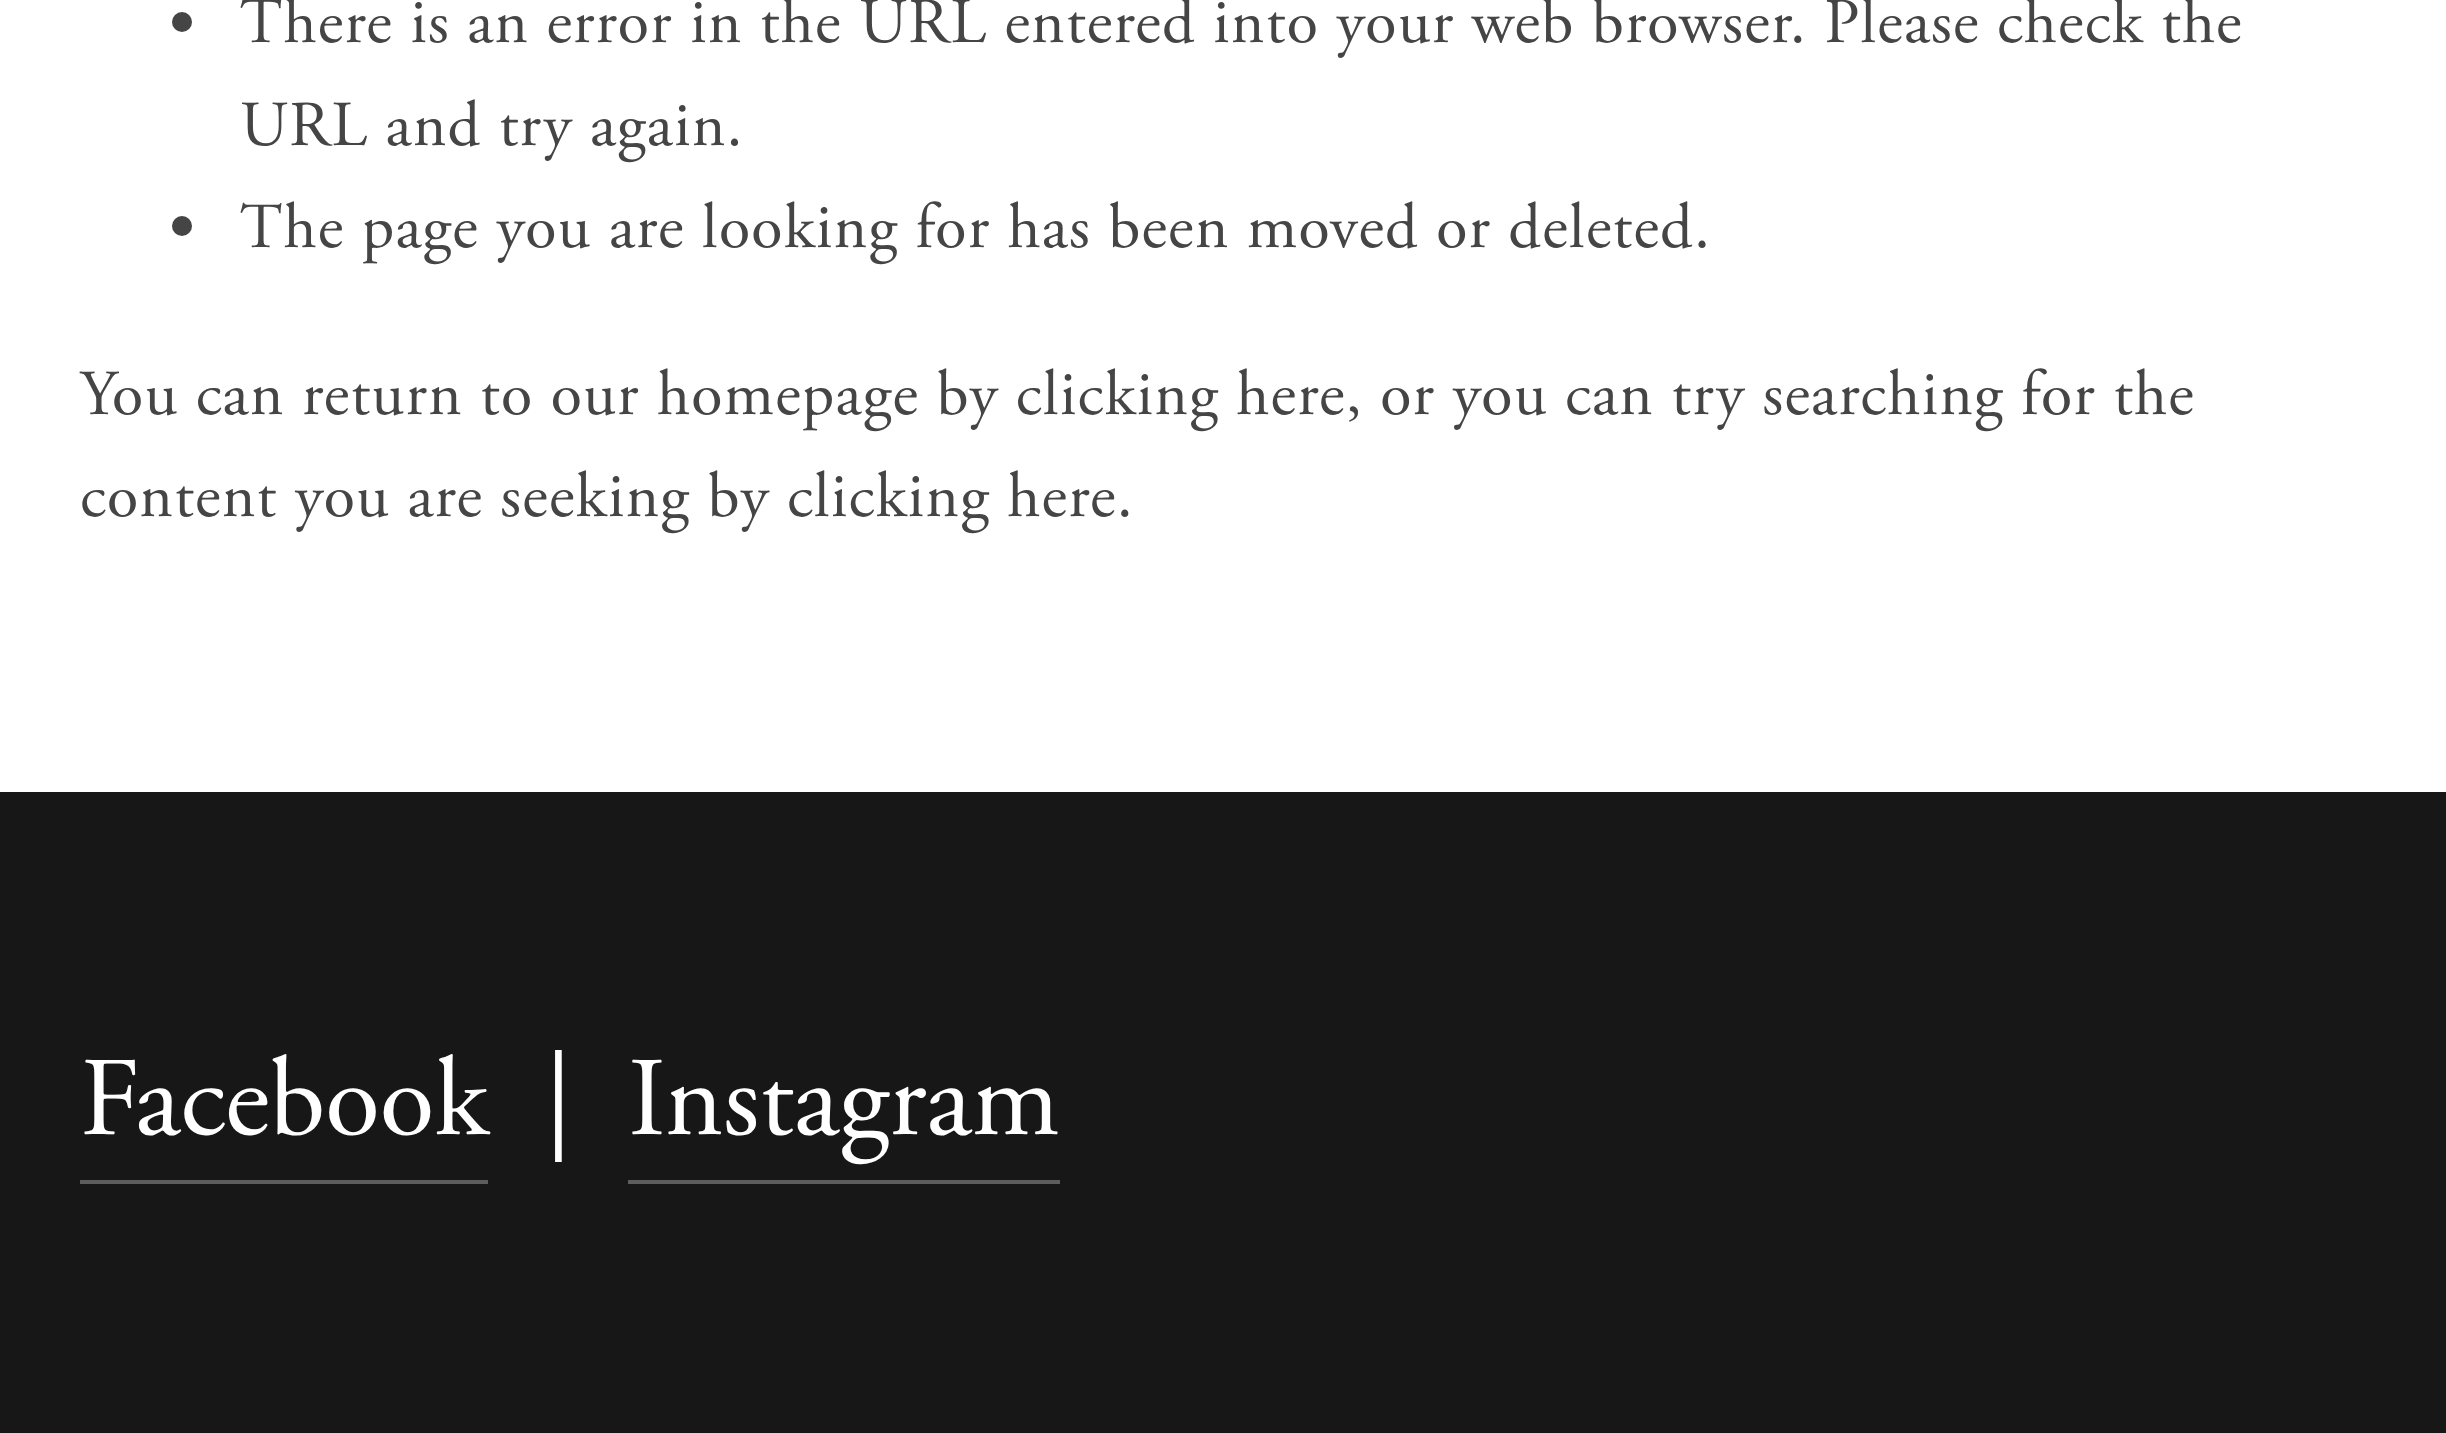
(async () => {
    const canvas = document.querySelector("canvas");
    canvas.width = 2446;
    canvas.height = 1433;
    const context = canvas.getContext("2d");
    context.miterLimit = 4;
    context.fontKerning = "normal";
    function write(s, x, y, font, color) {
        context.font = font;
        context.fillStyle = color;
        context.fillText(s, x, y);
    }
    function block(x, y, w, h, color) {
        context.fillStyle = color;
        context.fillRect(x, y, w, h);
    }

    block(0, 0, 2446, 1433, "rgb(23, 23, 23)");
    block(0, 0, 2446, 792, "rgb(255, 255, 255)");
    context.fillStyle = "rgb(69, 69, 69)";
    context.beginPath();
    context.arc(182, 22, 10, 0, Math.PI * 2);
    context.fill();
    context.letterSpacing = "1.28px";
    write("There is an error in the URL entered into your web browser. Please check the", 240, 42, "64px Adobe Garamond", "rgb(69, 69, 69)");
    write("URL and try again.", 240, 145, "64px Adobe Garamond", "rgb(69, 69, 69)");
    context.beginPath();
    context.arc(182, 226, 10, 0, Math.PI * 2);
    context.fill();
    write("The page you are looking for has been moved or deleted.", 240, 247, "64px Adobe Garamond", "rgb(69, 69, 69)");
    write("You can return to our homepage by clicking here, or you can try searching for the", 80, 414, "64px Adobe Garamond", "rgb(69, 69, 69)");
    write("content you are seeking by clicking here.", 80, 516, "64px Adobe Garamond", "rgb(69, 69, 69)");
    context.letterSpacing = "0px";
    write("Facebook", 80, 1134, "112px Adobe Garamond", "rgb(255, 255, 255)");
    block(80, 1180, 408, 4, "rgb(93, 93, 93)");
    write("|", 545, 1134, "112px Adobe Garamond", "rgb(255, 255, 255)");
    write("Instagram", 628, 1134, "112px Adobe Garamond", "rgb(255, 255, 255)");
    block(628, 1180, 432, 4, "rgb(93, 93, 93)");
})();
